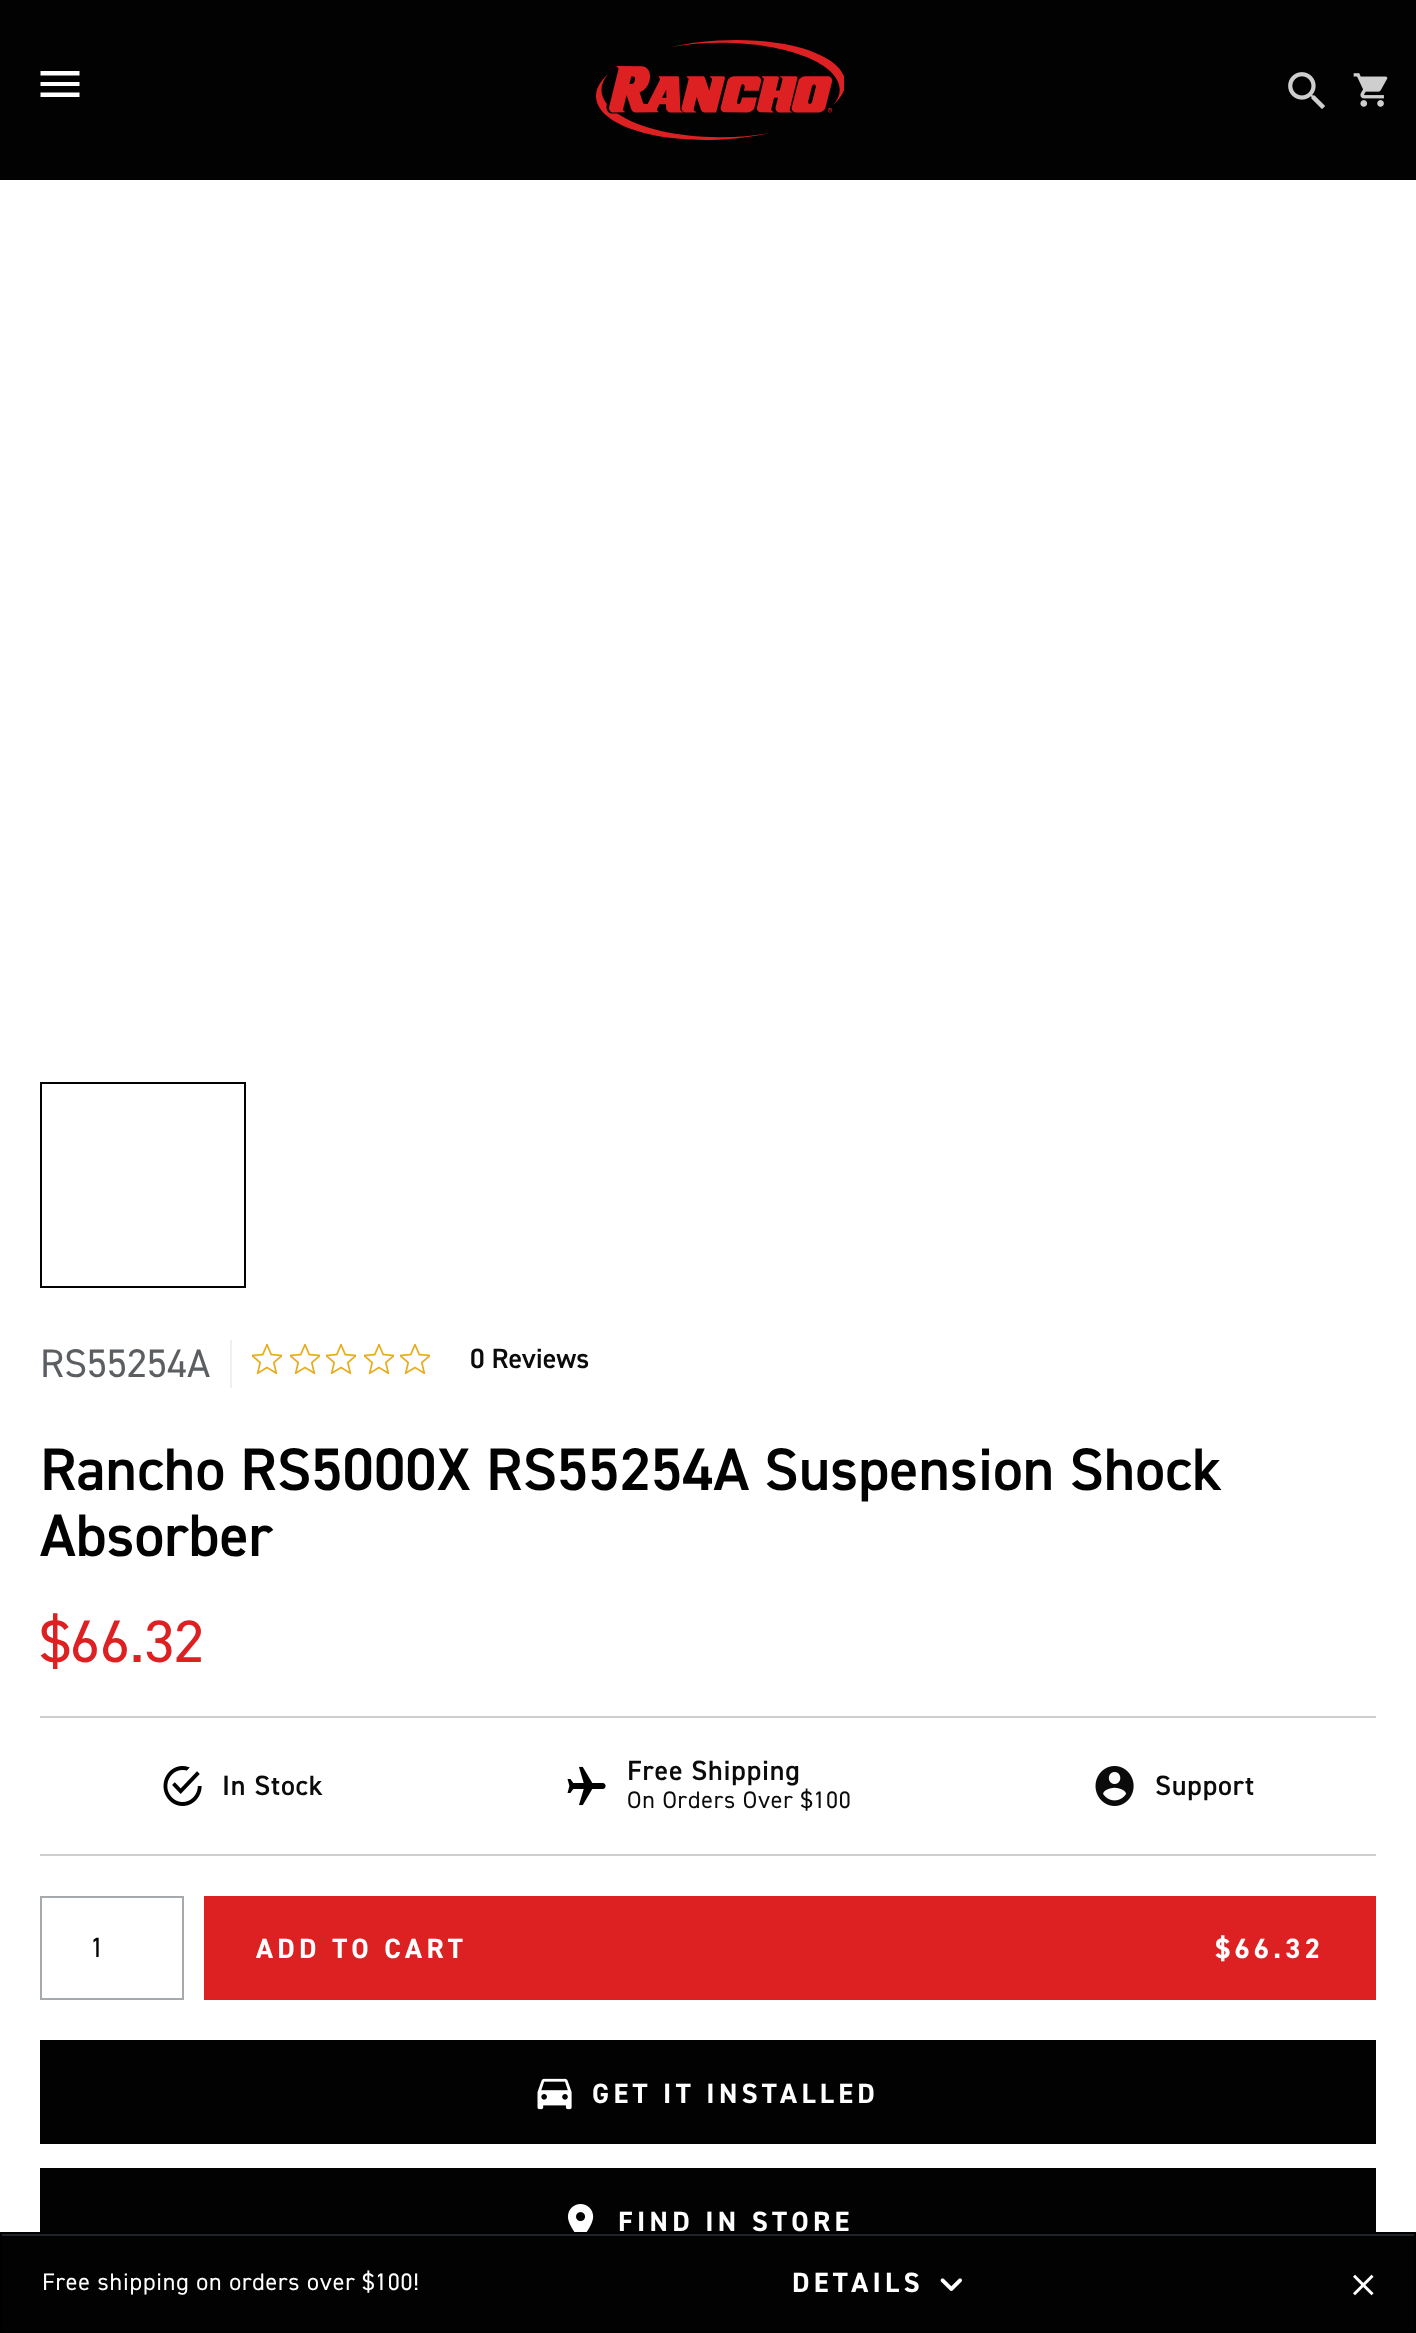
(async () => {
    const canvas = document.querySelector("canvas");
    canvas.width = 1416;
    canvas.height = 2333;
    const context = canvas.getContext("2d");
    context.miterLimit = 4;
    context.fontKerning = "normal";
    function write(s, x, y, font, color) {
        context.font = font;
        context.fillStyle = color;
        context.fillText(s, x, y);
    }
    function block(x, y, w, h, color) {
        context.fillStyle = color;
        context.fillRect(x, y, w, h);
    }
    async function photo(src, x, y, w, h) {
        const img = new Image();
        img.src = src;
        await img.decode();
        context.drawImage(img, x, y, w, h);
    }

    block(0, 0, 1416, 2333, "rgb(255, 255, 255)");
    context.strokeStyle = "rgb(2, 2, 2)";
    context.lineWidth = 2;
    context.strokeRect(41, 1083, 204, 204);
    block(230, 1340, 2, 48, "rgb(237, 240, 240)");
    write("RS55254A", 40, 1377, "40px 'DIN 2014'", "rgb(92, 95, 98)");
    await photo("media/1.png", 252, 1344, 30, 30);
    await photo("media/1.png", 290, 1344, 30, 30);
    await photo("media/1.png", 326, 1344, 30, 30);
    await photo("media/1.png", 364, 1344, 30, 30);
    await photo("media/1.png", 400, 1344, 30, 30);
    write("0 Reviews", 470, 1368, "600 28px 'DIN 2014'", "rgb(11, 11, 11)");
    write("Rancho RS5000X RS55254A Suspension Shock", 40, 1490, "600 60px 'DIN 2014'", "rgb(2, 2, 2)");
    write("Absorber", 40, 1556, "600 60px 'DIN 2014'", "rgb(2, 2, 2)");
    write("$66.32", 40, 1662, "60px 'DIN 2014'", "rgb(221, 32, 34)");
    block(40, 1716, 1336, 2, "rgb(206, 206, 206)");
    block(40, 1854, 1336, 2, "rgb(206, 206, 206)");
    await photo("media/2.png", 163, 1766, 39, 40);
    context.letterSpacing = "0.8px";
    write("In Stock", 222, 1795, "600 28px 'DIN 2014'", "rgb(11, 11, 11)");
    await photo("media/3.png", 567, 1766, 39, 40);
    write("Free Shipping", 627, 1780, "600 28px 'DIN 2014'", "rgb(11, 11, 11)");
    write("On Orders Over $100", 627, 1808, "24px 'DIN 2014'", "rgb(11, 11, 11)");
    await photo("media/4.png", 1095, 1766, 39, 40);
    write("Support", 1155, 1795, "600 28px 'DIN 2014'", "rgb(11, 11, 11)");
    context.strokeStyle = "rgb(165, 169, 172)";
    context.strokeRect(41, 1897, 142, 102);
    write("1", 90, 1957, "28px 'DIN 2014'", "rgb(2, 2, 2)");
    block(204, 1896, 1172, 104, "rgb(221, 32, 34)");
    context.letterSpacing = "4.3px";
    write("ADD TO CART", 256, 1958, "bold 28px 'DIN 2014'", "rgb(255, 255, 255)");
    write("$66.32", 1215, 1958, "bold 28px 'DIN 2014'", "rgb(255, 255, 255)");
    block(40, 2040, 1336, 104, "rgb(2, 2, 2)");
    await photo("media/5.png", 537, 2078, 35, 32);
    write("GET IT INSTALLED", 592, 2103, "bold 28px 'DIN 2014'", "rgb(255, 255, 255)");
    block(40, 2168, 1336, 64, "rgb(2, 2, 2)");
    await photo("media/6.png", 567, 2204, 27, 28);
    write("FIND IN STORE", 618, 2231, "bold 28px 'DIN 2014'", "rgb(255, 255, 255)");
    block(0, 0, 1416, 180, "rgb(2, 2, 2)");
    context.fillStyle = "rgb(255, 255, 255)";
    context.beginPath();
    context.moveTo(40.5, 75.5);
    context.lineTo(40.5, 71);
    context.lineTo(79.5, 71);
    context.lineTo(79.5, 75.5);
    context.closePath();
    context.moveTo(40.5, 86);
    context.lineTo(79.5, 86);
    context.lineTo(79.5, 82);
    context.lineTo(40.5, 82);
    context.closePath();
    context.moveTo(40.5, 97);
    context.lineTo(79.5, 97);
    context.lineTo(79.5, 92.5);
    context.lineTo(40.5, 92.5);
    context.closePath();
    context.fill("evenodd");
    await photo("media/7.png", 596, 40, 248, 100);
    await photo("media/8.png", 1288, 72, 37, 37);
    await photo("media/9.png", 1353, 73, 35, 34);
    block(2, 2236, 1412, 96, "rgb(2, 2, 2)");
    context.strokeStyle = "rgb(0, 0, 0)";
    context.strokeRect(1, 2233, 1414, 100);
    block(2, 2234, 1412, 2, "rgb(31, 34, 40)");
    context.letterSpacing = "0.8px";
    write("Free shipping on orders over $100!", 42, 2290, "24px 'DIN 2014'", "rgb(255, 255, 255)");
    context.letterSpacing = "4.3px";
    write("DETAILS", 792, 2292, "bold 28px 'DIN 2014'", "rgb(255, 255, 255)");
    await photo("media/10.png", 940, 2278, 22, 13);
    await photo("media/11.png", 1353, 2274, 21, 22);
})();
